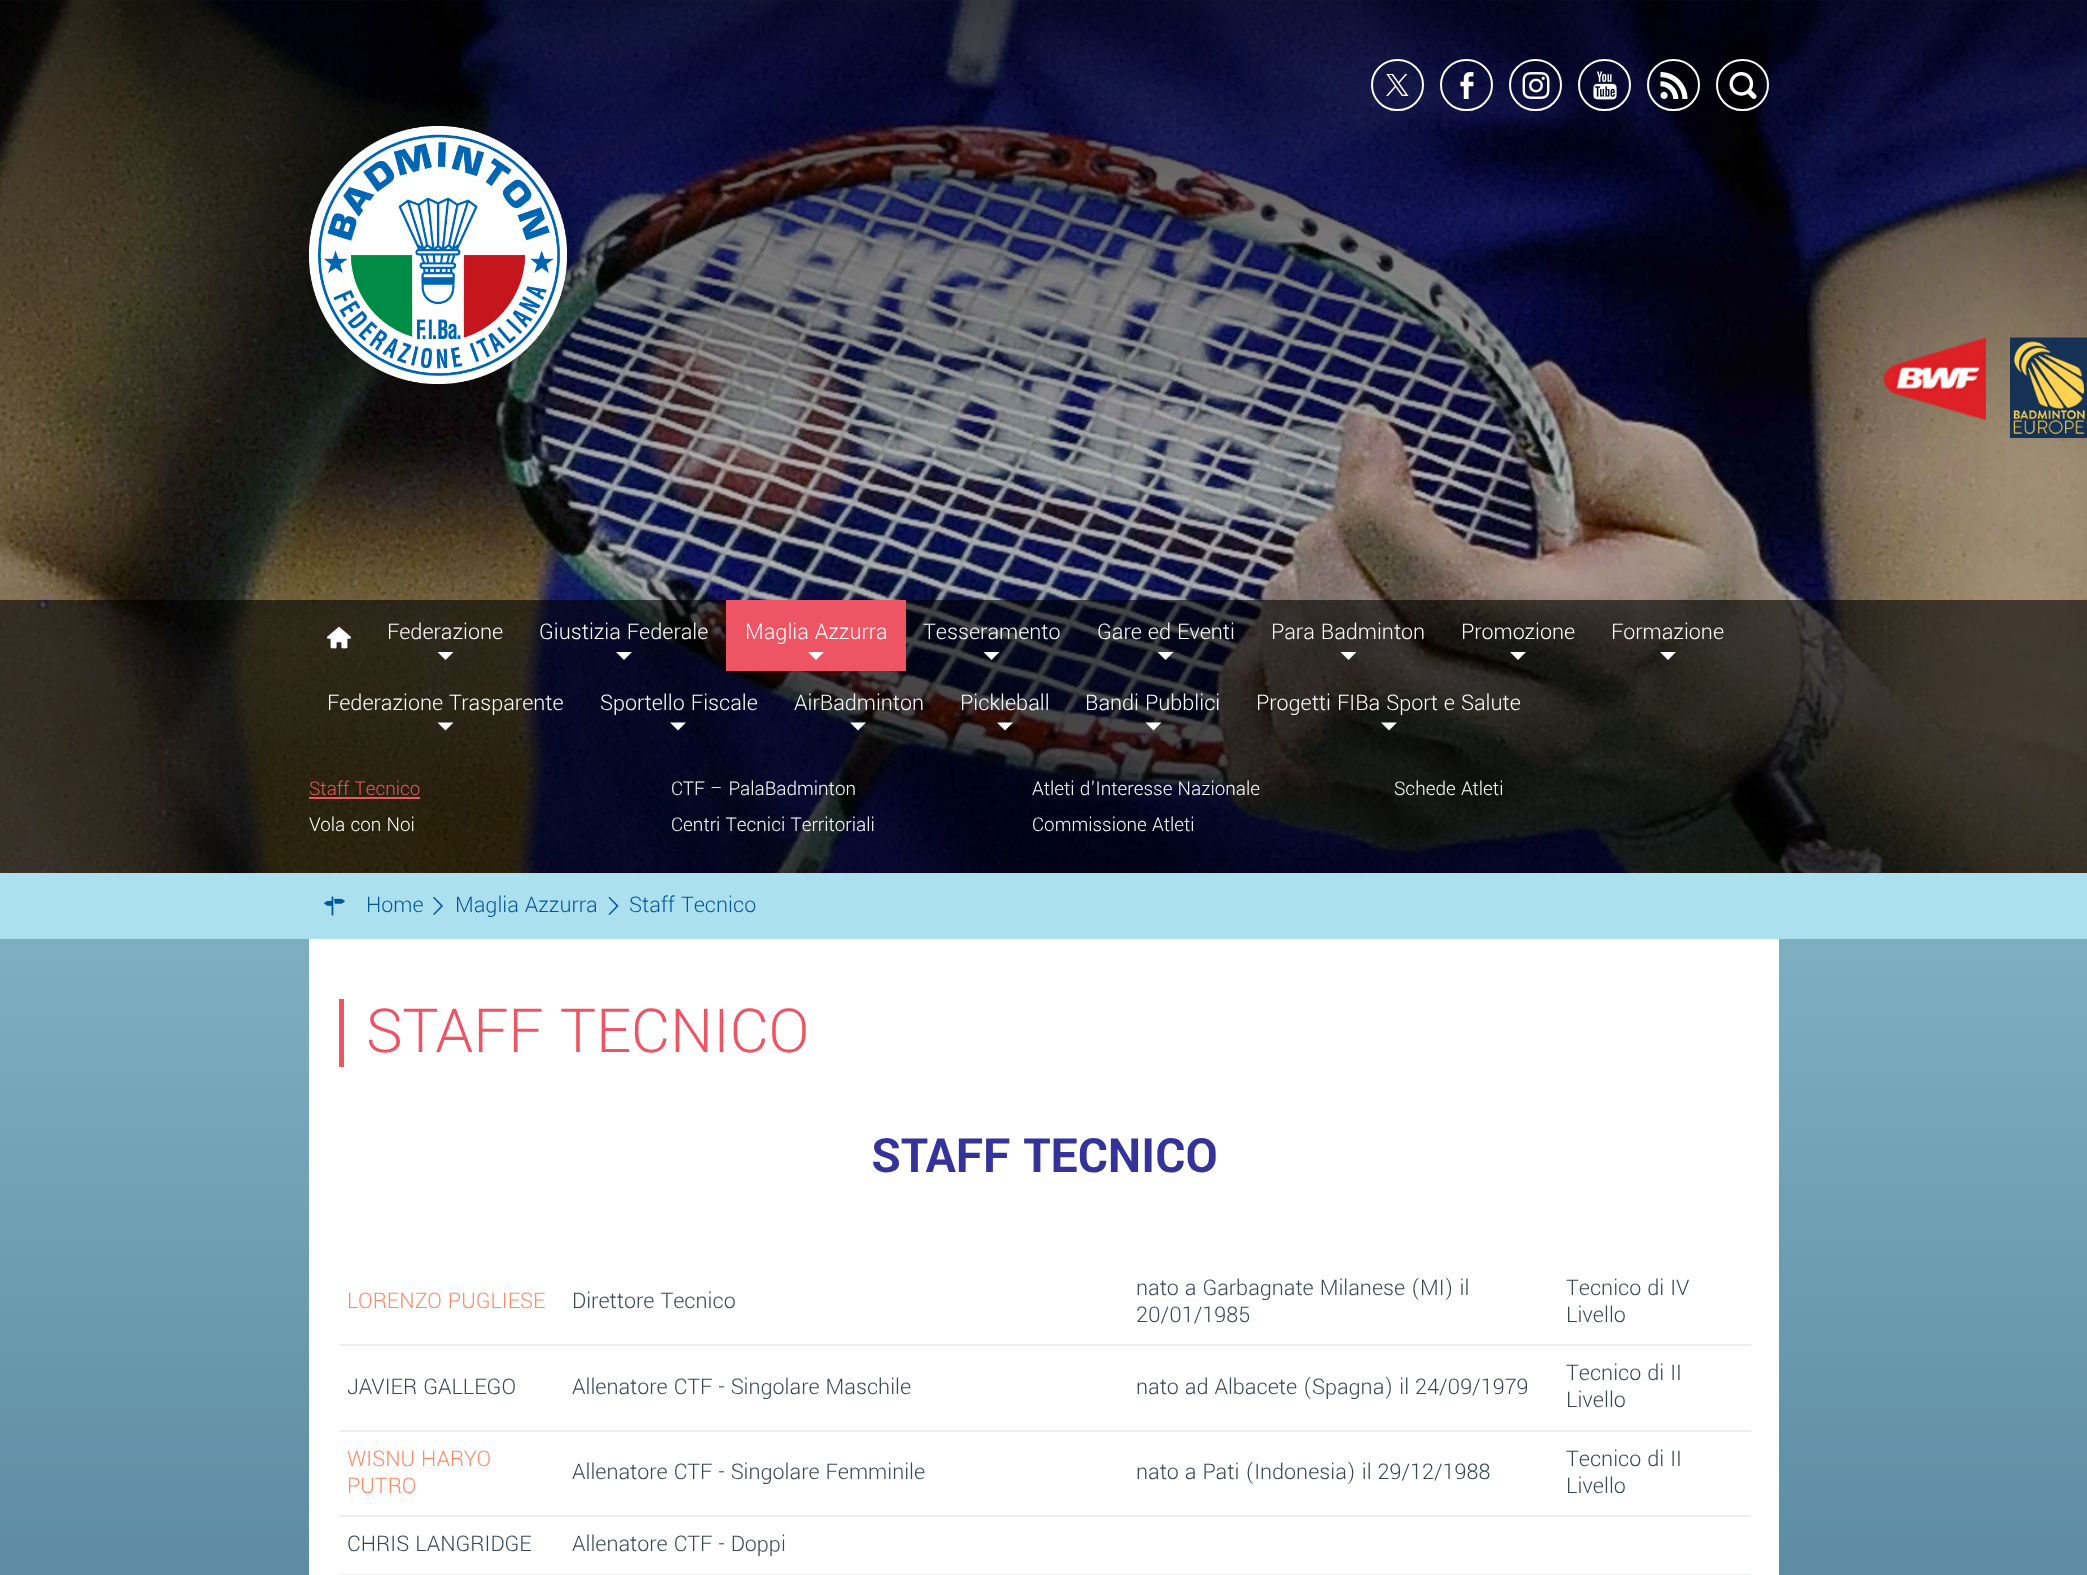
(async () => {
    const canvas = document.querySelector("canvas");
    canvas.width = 2087;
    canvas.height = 1575;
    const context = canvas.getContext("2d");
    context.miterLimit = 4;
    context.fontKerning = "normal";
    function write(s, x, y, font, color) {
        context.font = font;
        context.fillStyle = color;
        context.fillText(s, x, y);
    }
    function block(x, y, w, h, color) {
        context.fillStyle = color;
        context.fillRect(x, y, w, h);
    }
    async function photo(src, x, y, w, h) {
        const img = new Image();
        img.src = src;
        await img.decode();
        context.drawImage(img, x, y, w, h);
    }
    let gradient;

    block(0, 0, 2087, 1575, "rgb(255, 255, 255)");
    gradient = context.createLinearGradient(1044, 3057, 1044, 0);
    gradient.addColorStop(0, "rgb(16, 60, 89)");
    gradient.addColorStop(0.99, "rgb(173, 224, 238)");
    context.fillStyle = gradient;
    context.fillRect(0, 939, 2087, 636);
    await photo("media/1.png", 0, 0, 2087, 873);
    await photo("media/2.png", 1386, 74, 23, 22);
    context.beginPath();
    context.roundRect(1372, 60, 51, 50, 25);
    context.strokeStyle = "rgb(255, 255, 255)";
    context.lineWidth = 2;
    context.stroke();
    context.beginPath();
    context.roundRect(1441, 60, 51, 50, 25);
    context.stroke();
    await photo("media/3.png", 1460, 72, 14, 27);
    context.beginPath();
    context.roundRect(1510, 60, 51, 50, 25);
    context.stroke();
    await photo("media/4.png", 1522, 72, 28, 27);
    context.beginPath();
    context.roundRect(1579, 60, 51, 50, 25);
    context.stroke();
    await photo("media/5.png", 1593, 71, 24, 29);
    context.beginPath();
    context.roundRect(1648, 60, 51, 50, 25);
    context.stroke();
    await photo("media/6.png", 1660, 72, 28, 27);
    context.beginPath();
    context.roundRect(1717, 60, 51, 50, 25);
    context.stroke();
    await photo("media/7.png", 1729, 72, 28, 27);
    await photo("media/8.png", 309, 126, 258, 258);
    await photo("media/9.png", 1884, 337, 102, 83);
    await photo("media/10.png", 2010, 337, 77, 101);
    block(0, 600, 2087, 273, "rgba(0, 0, 0, 0.6)");
    await photo("media/11.png", 327, 626, 24, 23);
    write("Federazione", 387, 639, "300 24px Yantramanav", "rgb(255, 255, 255)");
    context.beginPath();
    context.moveTo(437.5, 652);
    context.lineTo(453.5, 652);
    context.lineTo(445.5, 660);
    context.closePath();
    context.fill();
    write("Giustizia Federale", 539, 639, "300 24px Yantramanav", "rgb(255, 255, 255)");
    context.beginPath();
    context.moveTo(616, 652);
    context.lineTo(632, 652);
    context.lineTo(624, 660);
    context.closePath();
    context.fill();
    block(726, 600, 180, 71, "rgb(237, 85, 100)");
    write("Maglia Azzurra", 745, 639, "300 24px Yantramanav", "rgb(255, 255, 255)");
    context.beginPath();
    context.moveTo(808, 652);
    context.lineTo(824, 652);
    context.lineTo(816, 660);
    context.closePath();
    context.fill();
    write("Tesseramento", 923, 639, "300 24px Yantramanav", "rgb(255, 255, 255)");
    context.beginPath();
    context.moveTo(983.5, 652);
    context.lineTo(999.5, 652);
    context.lineTo(991.5, 660);
    context.closePath();
    context.fill();
    write("Gare ed Eventi", 1097, 639, "300 24px Yantramanav", "rgb(255, 255, 255)");
    context.beginPath();
    context.moveTo(1157.5, 652);
    context.lineTo(1173.5, 652);
    context.lineTo(1165.5, 660);
    context.closePath();
    context.fill();
    write("Para Badminton", 1271, 639, "300 24px Yantramanav", "rgb(255, 255, 255)");
    context.beginPath();
    context.moveTo(1340.5, 652);
    context.lineTo(1356.5, 652);
    context.lineTo(1348.5, 660);
    context.closePath();
    context.fill();
    write("Promozione", 1461, 639, "300 24px Yantramanav", "rgb(255, 255, 255)");
    context.beginPath();
    context.moveTo(1510, 652);
    context.lineTo(1526, 652);
    context.lineTo(1518, 660);
    context.closePath();
    context.fill();
    write("Formazione", 1611, 639, "300 24px Yantramanav", "rgb(255, 255, 255)");
    context.beginPath();
    context.moveTo(1660, 652);
    context.lineTo(1676, 652);
    context.lineTo(1668, 660);
    context.closePath();
    context.fill();
    write("Federazione Trasparente", 327, 710, "300 24px Yantramanav", "rgb(255, 255, 255)");
    context.beginPath();
    context.moveTo(437.5, 722.5);
    context.lineTo(453.5, 722.5);
    context.lineTo(445.5, 730.5);
    context.closePath();
    context.fill();
    write("Sportello Fiscale", 600, 710, "300 24px Yantramanav", "rgb(255, 255, 255)");
    context.beginPath();
    context.moveTo(670, 722.5);
    context.lineTo(686, 722.5);
    context.lineTo(678, 730.5);
    context.closePath();
    context.fill();
    write("AirBadminton", 794, 710, "300 24px Yantramanav", "rgb(255, 255, 255)");
    context.beginPath();
    context.moveTo(850, 722.5);
    context.lineTo(866, 722.5);
    context.lineTo(858, 730.5);
    context.closePath();
    context.fill();
    write("Pickleball", 960, 710, "300 24px Yantramanav", "rgb(255, 255, 255)");
    context.beginPath();
    context.moveTo(997, 722.5);
    context.lineTo(1013, 722.5);
    context.lineTo(1005, 730.5);
    context.closePath();
    context.fill();
    write("Bandi Pubblici", 1085, 710, "300 24px Yantramanav", "rgb(255, 255, 255)");
    context.beginPath();
    context.moveTo(1145.5, 722.5);
    context.lineTo(1161.5, 722.5);
    context.lineTo(1153.5, 730.5);
    context.closePath();
    context.fill();
    write("Progetti FIBa Sport e Salute", 1256, 710, "300 24px Yantramanav", "rgb(255, 255, 255)");
    context.beginPath();
    context.moveTo(1381, 722.5);
    context.lineTo(1397, 722.5);
    context.lineTo(1389, 730.5);
    context.closePath();
    context.fill();
    write("Staff Tecnico", 309, 795, "300 21px Yantramanav", "rgb(237, 85, 100)");
    block(309, 797, 111, 2, "rgb(237, 85, 100)");
    write("CTF – PalaBadminton", 671, 795, "300 21px Yantramanav", "rgb(255, 255, 255)");
    write("Atleti d'Interesse Nazionale", 1032, 795, "300 21px Yantramanav", "rgb(255, 255, 255)");
    write("Schede Atleti", 1394, 795, "300 21px Yantramanav", "rgb(255, 255, 255)");
    write("Vola con Noi", 309, 831, "300 21px Yantramanav", "rgb(255, 255, 255)");
    write("Centri Tecnici Territoriali", 671, 831, "300 21px Yantramanav", "rgb(255, 255, 255)");
    write("Commissione Atleti", 1032, 831, "300 21px Yantramanav", "rgb(255, 255, 255)");
    block(0, 873, 2087, 66, "rgb(173, 224, 238)");
    await photo("media/12.png", 324, 896, 21, 20);
    write("Home", 366, 912, "300 24px Yantramanav", "rgb(1, 87, 155)");
    await photo("media/13.png", 433, 897, 10, 18);
    write("Maglia Azzurra", 455, 912, "300 24px Yantramanav", "rgb(1, 87, 155)");
    await photo("media/14.png", 608, 897, 11, 18);
    write("Staff Tecnico", 629, 912, "300 24px Yantramanav", "rgb(1, 87, 155)");
    block(309, 939, 1470, 636, "rgb(255, 255, 255)");
    block(339, 999, 5, 68, "rgb(237, 85, 100)");
    write("STAFF TECNICO", 366, 1052, "300 67.5px Yantramanav", "rgb(237, 85, 100)");
    write("STAFF TECNICO", 871, 1172, "bold 52.5px Yantramanav", "rgb(51, 51, 153)");
    write("LORENZO PUGLIESE", 347, 1308, "300 24px Yantramanav", "rgb(255, 138, 101)");
    write("Direttore Tecnico", 572, 1308, "300 24px Yantramanav", "rgb(55, 71, 79)");
    write("nato a Garbagnate Milanese (MI) il", 1136, 1295, "300 24px Yantramanav", "rgb(55, 71, 79)");
    write("20/01/1985", 1136, 1322, "300 24px Yantramanav", "rgb(55, 71, 79)");
    block(339, 1344, 1412, 2, "rgb(236, 239, 241)");
    write("Tecnico di IV", 1566, 1295, "300 24px Yantramanav", "rgb(55, 71, 79)");
    write("Livello", 1566, 1322, "300 24px Yantramanav", "rgb(55, 71, 79)");
    write("JAVIER GALLEGO", 347, 1394, "300 24px Yantramanav", "rgb(55, 71, 79)");
    write("Allenatore CTF - Singolare Maschile", 572, 1394, "300 24px Yantramanav", "rgb(55, 71, 79)");
    write("nato ad Albacete (Spagna) il 24/09/1979", 1136, 1394, "300 24px Yantramanav", "rgb(55, 71, 79)");
    block(339, 1430, 1412, 2, "rgb(236, 239, 241)");
    write("Tecnico di II", 1566, 1380, "300 24px Yantramanav", "rgb(55, 71, 79)");
    write("Livello", 1566, 1407, "300 24px Yantramanav", "rgb(55, 71, 79)");
    write("WISNU HARYO", 347, 1466, "300 24px Yantramanav", "rgb(255, 138, 101)");
    write("PUTRO", 347, 1493, "300 24px Yantramanav", "rgb(255, 138, 101)");
    write("Allenatore CTF - Singolare Femminile", 572, 1479, "300 24px Yantramanav", "rgb(55, 71, 79)");
    write("nato a Pati (Indonesia) il 29/12/1988", 1136, 1479, "300 24px Yantramanav", "rgb(55, 71, 79)");
    block(339, 1515, 1412, 2, "rgb(236, 239, 241)");
    write("Tecnico di II", 1566, 1466, "300 24px Yantramanav", "rgb(55, 71, 79)");
    write("Livello", 1566, 1493, "300 24px Yantramanav", "rgb(55, 71, 79)");
    write("CHRIS LANGRIDGE", 347, 1551, "300 24px Yantramanav", "rgb(55, 71, 79)");
    write("Allenatore CTF - Doppi", 572, 1551, "300 24px Yantramanav", "rgb(55, 71, 79)");
    block(339, 1574, 1412, 1, "rgb(236, 239, 241)");
})();
